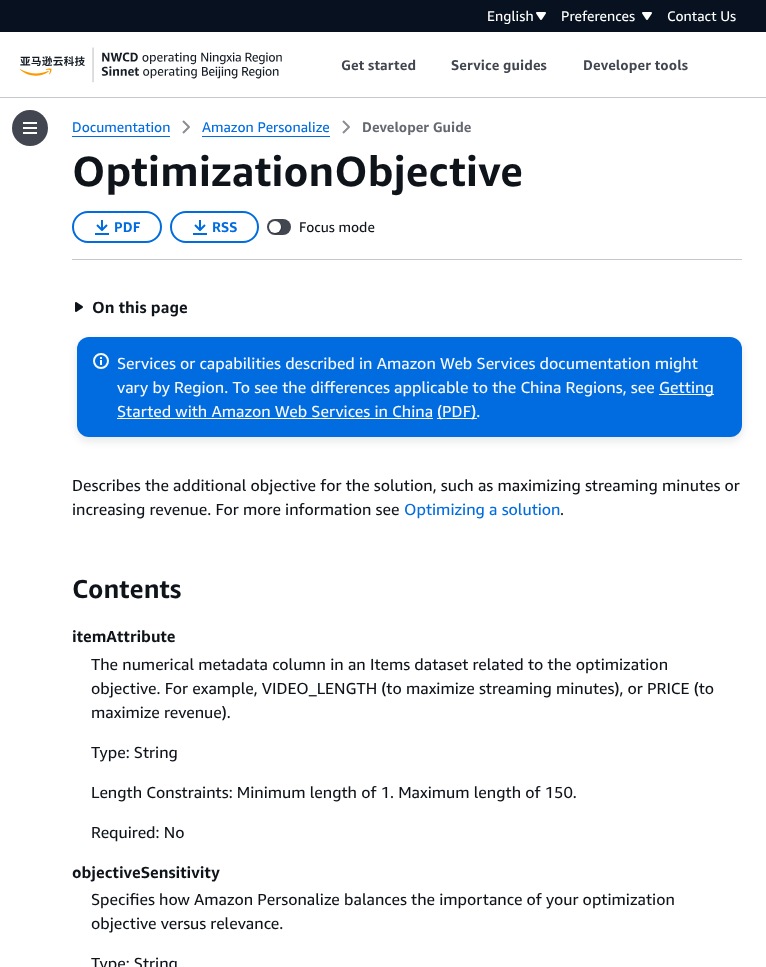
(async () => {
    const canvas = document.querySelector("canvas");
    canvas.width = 766;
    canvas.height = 967;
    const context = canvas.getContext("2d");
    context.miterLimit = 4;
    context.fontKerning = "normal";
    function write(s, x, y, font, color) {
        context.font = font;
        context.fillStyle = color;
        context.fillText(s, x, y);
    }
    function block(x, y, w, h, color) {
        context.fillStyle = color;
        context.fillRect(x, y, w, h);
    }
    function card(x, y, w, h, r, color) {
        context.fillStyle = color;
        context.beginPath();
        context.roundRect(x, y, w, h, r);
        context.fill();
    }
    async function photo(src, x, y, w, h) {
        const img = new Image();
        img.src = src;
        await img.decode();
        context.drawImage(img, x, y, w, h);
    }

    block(0, 0, 766, 967, "rgb(255, 255, 255)");
    block(0, 97, 766, 1, "rgb(198, 198, 205)");
    block(0, 0, 766, 32, "rgb(8, 17, 32)");
    context.letterSpacing = "0.1px";
    write("English", 487, 21, "14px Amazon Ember", "rgb(255, 255, 255)");
    await photo("media/1.png", 536, 12, 10, 8);
    context.letterSpacing = "0px";
    write("Preferences", 561, 21, "14px Amazon Ember", "rgb(255, 255, 255)");
    await photo("media/1.png", 642, 12, 10, 8);
    write("Contact Us", 667, 21, "14px Amazon Ember", "rgb(255, 255, 255)");
    await photo("media/2.png", 20, 47, 262, 36);
    context.letterSpacing = "0.1px";
    write("Get started", 341, 70, "bold 14px Amazon Ember", "rgb(66, 70, 80)");
    write("Service guides", 451, 70, "bold 14px Amazon Ember", "rgb(66, 70, 80)");
    write("Developer tools", 583, 70, "bold 14px Amazon Ember", "rgb(66, 70, 80)");
    context.beginPath();
    context.arc(30, 128, 18, 0, Math.PI * 2);
    context.fill();
    context.beginPath();
    context.moveTo(37, 123);
    context.lineTo(23, 123);
    context.moveTo(37, 128);
    context.lineTo(23, 128);
    context.moveTo(37, 133);
    context.lineTo(23, 133);
    context.strokeStyle = "rgb(255, 255, 255)";
    context.lineWidth = 2;
    context.lineJoin = "round";
    context.stroke();
    context.letterSpacing = "0px";
    write("Documentation", 72, 132, "14px Amazon Ember", "rgb(0, 108, 224)");
    block(72, 136, 98, 1, "rgb(0, 108, 224)");
    context.beginPath();
    context.moveTo(183, 121);
    context.lineTo(189, 127);
    context.lineTo(183, 133);
    context.strokeStyle = "rgb(140, 140, 148)";
    context.stroke();
    write("Amazon Personalize", 202, 132, "14px Amazon Ember", "rgb(0, 108, 224)");
    block(202, 136, 128, 1, "rgb(0, 108, 224)");
    context.beginPath();
    context.moveTo(343, 121);
    context.lineTo(349, 127);
    context.lineTo(343, 133);
    context.stroke();
    write("Developer Guide", 362, 132, "bold 14px Amazon Ember", "rgb(101, 104, 113)");
    block(72, 259, 670, 1, "rgb(198, 198, 205)");
    write("OptimizationObjective", 72, 186, "bold 42px Amazon Ember", "rgb(15, 20, 26)");
    context.beginPath();
    context.roundRect(73, 212, 88, 30, 15);
    context.strokeStyle = "rgb(0, 108, 224)";
    context.lineJoin = "miter";
    context.stroke();
    context.beginPath();
    context.moveTo(95, 234);
    context.lineTo(109, 234);
    context.moveTo(107, 225);
    context.lineTo(102, 230);
    context.lineTo(97, 225);
    context.moveTo(102, 229);
    context.lineTo(102, 220);
    context.lineJoin = "round";
    context.stroke();
    context.letterSpacing = "0.1px";
    write("PDF", 114, 232, "bold 14px Amazon Ember", "rgb(0, 108, 224)");
    context.beginPath();
    context.roundRect(171, 212, 87, 30, 15);
    context.lineJoin = "miter";
    context.stroke();
    context.beginPath();
    context.moveTo(193, 234);
    context.lineTo(207, 234);
    context.moveTo(205, 225);
    context.lineTo(200, 230);
    context.lineTo(195, 225);
    context.moveTo(200, 229);
    context.lineTo(200, 220);
    context.lineJoin = "round";
    context.stroke();
    write("RSS", 212, 232, "bold 14px Amazon Ember", "rgb(0, 108, 224)");
    card(267, 219, 24, 16, 8, "rgb(66, 70, 80)");
    context.fillStyle = "rgb(50, 53, 60)";
    context.beginPath();
    context.moveTo(271.5, 231.5);
    context.bezierCurveTo(276.5, 238.5, 286.5, 228.5, 279.5, 223.5);
    context.bezierCurveTo(284, 229, 277, 236, 271.5, 231.5);
    context.closePath();
    context.fill();
    context.fillStyle = "rgb(255, 255, 255)";
    context.beginPath();
    context.arc(275, 227, 6, 0, Math.PI * 2);
    context.fill();
    context.letterSpacing = "0px";
    write("Focus mode", 299, 232, "14px Amazon Ember", "rgb(15, 20, 26)");
    await photo("media/3.png", 75, 302, 8, 10);
    write("On this page", 92, 313, "bold 16px Amazon Ember", "rgb(15, 20, 26)");
    context.fillStyle = "rgba(0, 7, 22, 0.1)";
    context.filter = "blur(4px)";
    context.beginPath();
    context.roundRect(77, 341, 665, 100, 12);
    context.fill();
    context.filter = "none";
    card(77, 337, 665, 100, 12, "rgb(0, 108, 224)");
    context.beginPath();
    context.arc(101, 361, 7, 0, Math.PI * 2);
    context.strokeStyle = "rgb(249, 249, 250)";
    context.stroke();
    context.beginPath();
    context.moveTo(101, 365);
    context.lineTo(101, 360);
    context.moveTo(101, 359);
    context.lineTo(101, 357);
    context.lineJoin = "miter";
    context.stroke();
    write("Services or capabilities described in Amazon Web Services documentation might", 117, 369, "16px Amazon Ember", "rgb(249, 249, 250)");
    write("vary by Region. To see the differences applicable to the China Regions, see", 117, 393, "16px Amazon Ember", "rgb(249, 249, 250)");
    block(659, 394, 55, 1, "rgb(249, 249, 250)");
    write("Getting", 659, 393, "16px Amazon Ember", "rgb(249, 249, 250)");
    write("Started with Amazon Web Services in China", 117, 417, "16px Amazon Ember", "rgb(249, 249, 250)");
    block(117, 418, 316, 1, "rgb(249, 249, 250)");
    block(437, 418, 40, 1, "rgb(249, 249, 250)");
    write("(PDF).", 437, 417, "16px Amazon Ember", "rgb(249, 249, 250)");
    write("Describes the additional objective for the solution, such as maximizing streaming minutes or", 72, 491, "16px Amazon Ember", "rgb(15, 20, 26)");
    write("increasing revenue. For more information see", 72, 515, "16px Amazon Ember", "rgb(15, 20, 26)");
    write("Optimizing a solution", 404, 515, "16px Amazon Ember", "rgb(0, 108, 224)");
    write(".", 560, 515, "16px Amazon Ember", "rgb(15, 20, 26)");
    write("Contents", 72, 598, "bold 26px Amazon Ember", "rgb(15, 20, 26)");
    write("itemAttribute", 72, 642, "bold 16px Amazon Ember", "rgb(15, 20, 26)");
    write("The numerical metadata column in an Items dataset related to the optimization", 91, 670, "16px Amazon Ember", "rgb(15, 20, 26)");
    write("objective. For example, VIDEO_LENGTH (to maximize streaming minutes), or PRICE (to", 91, 694, "16px Amazon Ember", "rgb(15, 20, 26)");
    write("maximize revenue).", 91, 718, "16px Amazon Ember", "rgb(15, 20, 26)");
    write("Type: String", 91, 758, "16px Amazon Ember", "rgb(15, 20, 26)");
    write("Length Constraints: Minimum length of 1. Maximum length of 150.", 91, 798, "16px Amazon Ember", "rgb(15, 20, 26)");
    write("Required: No", 91, 838, "16px Amazon Ember", "rgb(15, 20, 26)");
    write("objectiveSensitivity", 72, 878, "bold 16px Amazon Ember", "rgb(15, 20, 26)");
    write("Specifies how Amazon Personalize balances the importance of your optimization", 91, 905, "16px Amazon Ember", "rgb(15, 20, 26)");
    write("objective versus relevance.", 91, 929, "16px Amazon Ember", "rgb(15, 20, 26)");
    write("Type: String", 91, 969, "16px Amazon Ember", "rgb(15, 20, 26)");
})();
